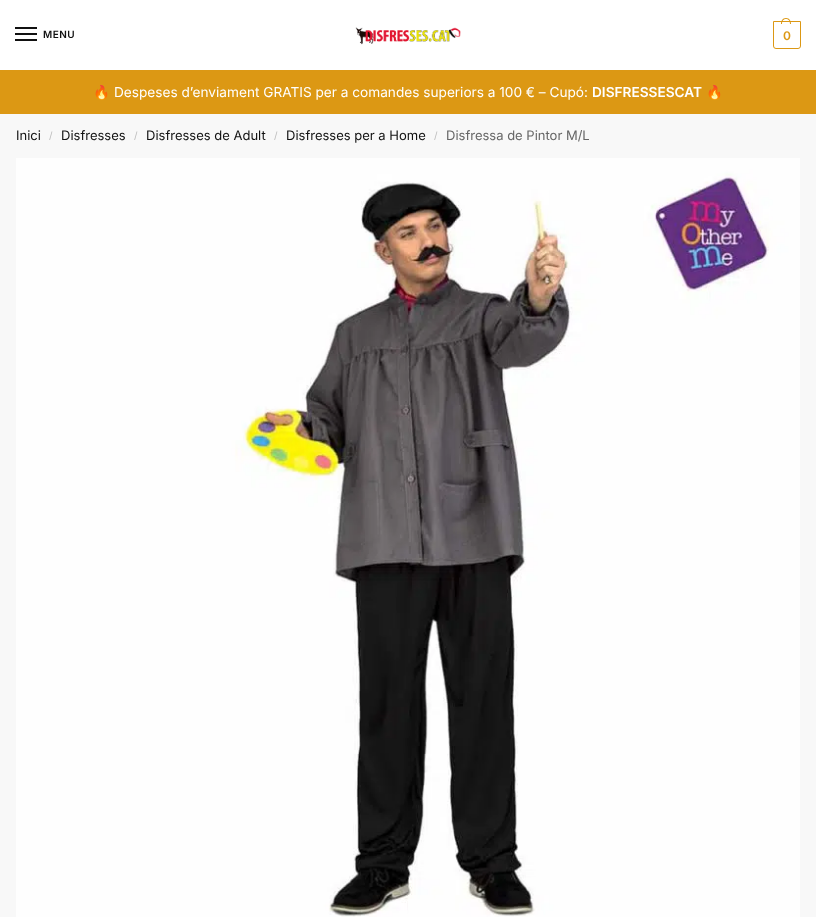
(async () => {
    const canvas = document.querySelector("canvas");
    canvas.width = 831;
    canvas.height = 917;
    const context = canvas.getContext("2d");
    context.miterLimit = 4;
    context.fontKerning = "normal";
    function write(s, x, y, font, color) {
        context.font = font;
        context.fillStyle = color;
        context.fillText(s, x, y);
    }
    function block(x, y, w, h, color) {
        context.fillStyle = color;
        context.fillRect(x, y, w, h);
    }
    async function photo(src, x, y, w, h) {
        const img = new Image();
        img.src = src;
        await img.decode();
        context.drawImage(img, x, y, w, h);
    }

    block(0, 0, 831, 917, "rgb(255, 255, 255)");
    block(15, 27, 22, 2, "rgb(17, 17, 17)");
    block(15, 33, 22, 2, "rgb(17, 17, 17)");
    context.letterSpacing = "0.5px";
    write("MENU", 43, 38, "600 10px Inter", "rgb(17, 17, 17)");
    block(15, 39, 22, 2, "rgb(17, 17, 17)");
    await photo("media/1.png", 355, 27, 106, 18);
    context.beginPath();
    context.roundRect(773.5, 21.5, 27, 27, [0, 0, 2.5, 2.5]);
    context.strokeStyle = "rgb(220, 152, 20)";
    context.stroke();
    context.fillStyle = "rgb(220, 152, 20)";
    context.beginPath();
    context.moveTo(786, 18);
    context.bezierCurveTo(789.5, 18, 791, 21, 791, 24);
    context.lineTo(781, 24);
    context.bezierCurveTo(781, 21, 782.5, 18, 786, 18);
    context.closePath();
    context.moveTo(786, 19);
    context.bezierCurveTo(789, 19, 790, 21.5, 790, 24);
    context.lineTo(782, 24);
    context.bezierCurveTo(782, 21.5, 783, 19, 786, 19);
    context.closePath();
    context.fill("evenodd");
    context.letterSpacing = "-1px";
    write("0", 783, 40, "600 12px Inter", "rgb(220, 152, 20)");
    block(0, 70, 816, 44, "rgb(220, 152, 20)");
    context.letterSpacing = "0px";
    write("🔥", 93, 97, "13.65px Noto Color Emoji", "rgb(255, 255, 255)");
    write("Despeses d’enviament GRATIS per a comandes superiors a 100 € – Cupó:", 114, 97, "13.65px Inter", "rgb(255, 255, 255)");
    write("DISFRESSESCAT", 592, 97, "600 13.65px Inter", "rgb(255, 255, 255)");
    write("🔥", 706, 97, "bold 13.65px Noto Color Emoji", "rgb(255, 255, 255)");
    block(0, 114, 816, 803, "rgb(248, 248, 248)");
    write("Inici", 16, 140, "13px Inter", "rgb(17, 17, 17)");
    write("/", 49, 139, "10px Inter", "rgb(190, 190, 190)");
    write("Disfresses", 61, 140, "13px Inter", "rgb(17, 17, 17)");
    write("/", 134, 139, "10px Inter", "rgb(190, 190, 190)");
    write("Disfresses de Adult", 146, 140, "13px Inter", "rgb(17, 17, 17)");
    write("/", 274, 139, "10px Inter", "rgb(190, 190, 190)");
    write("Disfresses per a Home", 286, 140, "13px Inter", "rgb(17, 17, 17)");
    write("/", 434, 139, "10px Inter", "rgb(190, 190, 190)");
    write("Disfressa de Pintor M/L", 446, 140, "13px Inter", "rgb(102, 102, 102)");
    await photo("media/2.png", 16, 158, 784, 759);
})();
